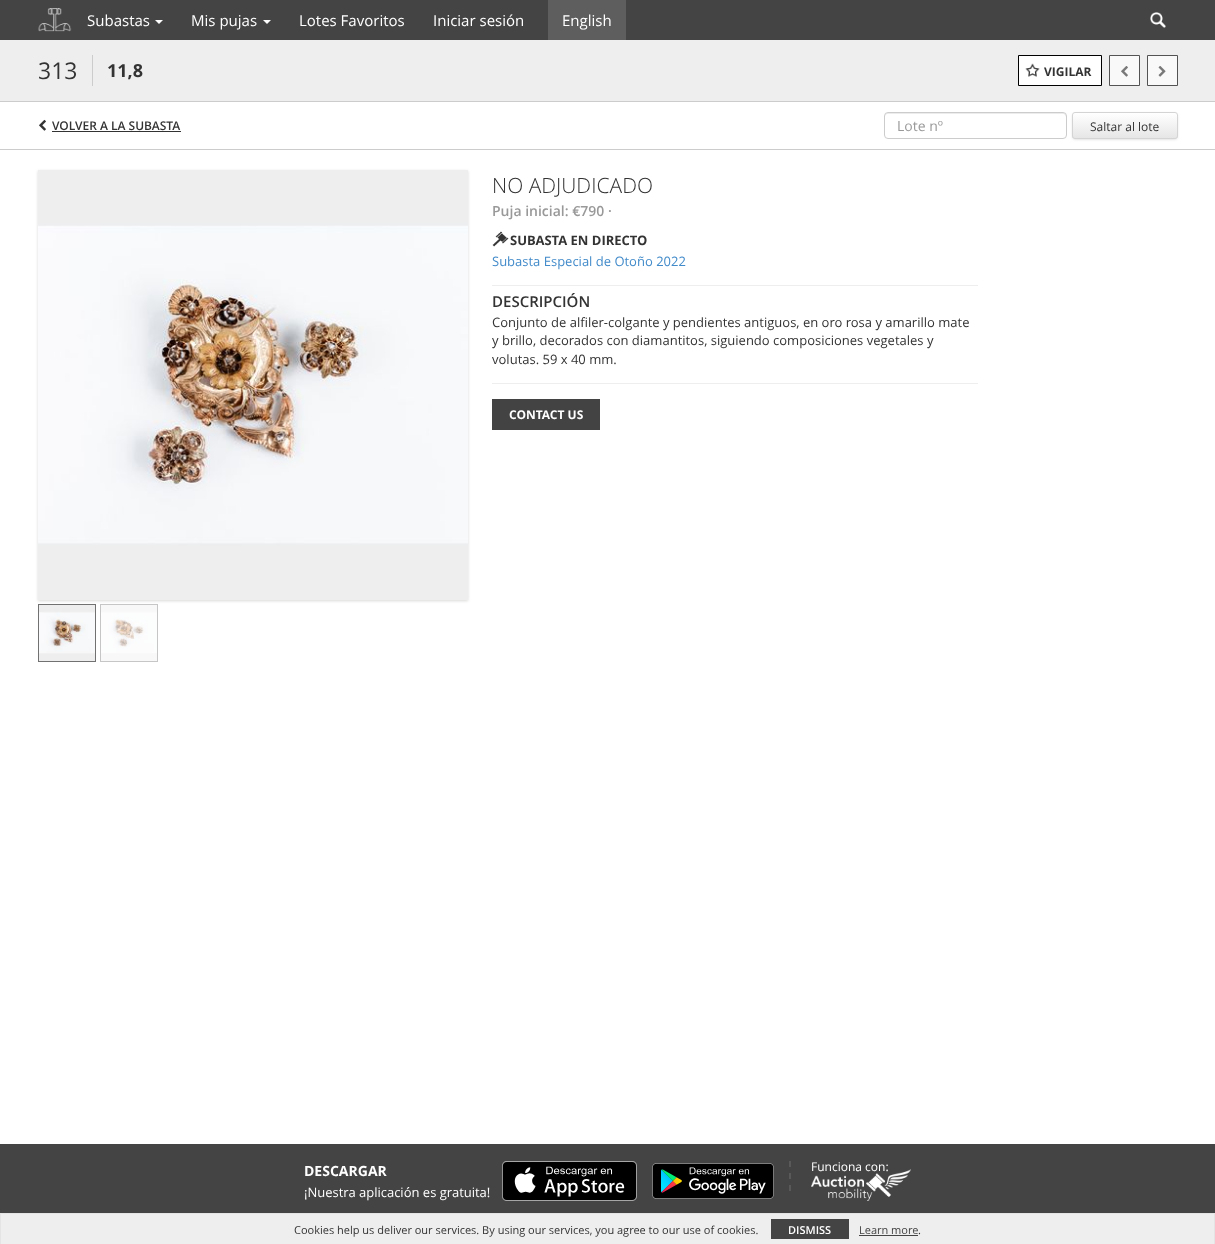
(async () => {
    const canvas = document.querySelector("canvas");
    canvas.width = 1215;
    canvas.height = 1244;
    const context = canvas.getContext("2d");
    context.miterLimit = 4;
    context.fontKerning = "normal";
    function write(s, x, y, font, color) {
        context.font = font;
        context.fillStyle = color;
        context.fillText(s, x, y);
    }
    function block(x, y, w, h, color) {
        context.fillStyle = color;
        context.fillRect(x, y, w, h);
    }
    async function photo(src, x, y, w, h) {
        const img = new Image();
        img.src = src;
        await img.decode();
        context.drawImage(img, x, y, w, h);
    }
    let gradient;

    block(0, 0, 1215, 1244, "rgb(255, 255, 255)");
    block(0, 0, 1215, 40, "rgb(68, 68, 68)");
    await photo("media/1.png", 38, 8, 34, 24);
    write("Subastas", 87, 26, "15px Open Sans", "rgb(255, 255, 255)");
    context.beginPath();
    context.moveTo(155, 20);
    context.lineTo(163, 20);
    context.lineTo(159, 24);
    context.closePath();
    context.fill();
    write("Mis pujas", 191, 26, "15px Open Sans", "rgb(255, 255, 255)");
    context.beginPath();
    context.moveTo(263, 20);
    context.lineTo(271, 20);
    context.lineTo(267, 24);
    context.closePath();
    context.fill();
    write("Lotes Favoritos", 299, 26, "15px Open Sans", "rgb(255, 255, 255)");
    write("Iniciar sesión", 433, 26, "15px Open Sans", "rgb(255, 255, 255)");
    block(548, 0, 78, 40, "rgb(94, 94, 94)");
    write("English", 562, 26, "15px Open Sans", "rgb(255, 255, 255)");
    await photo("media/2.png", 1150, 12, 16, 16);
    block(0, 40, 1215, 61, "rgb(238, 238, 238)");
    block(0, 101, 1215, 1, "rgb(204, 204, 204)");
    write("313", 38, 79, "23px Open Sans", "rgb(51, 51, 51)");
    block(92, 55, 1, 31, "rgb(204, 204, 204)");
    write("11,8", 107, 77, "bold 18px Open Sans", "rgb(51, 51, 51)");
    context.fillStyle = "rgb(255, 255, 255)";
    context.beginPath();
    context.rect(1018.5, 55.5, 83, 30);
    context.fill();
    context.strokeStyle = "rgb(0, 0, 0)";
    context.stroke();
    await photo("media/3.png", 1025, 63, 15, 14);
    write("VIGILAR", 1044, 76, "bold 12px Open Sans", "rgb(51, 51, 51)");
    context.fillStyle = "rgb(249, 249, 249)";
    context.beginPath();
    context.rect(1109.5, 55.5, 30, 30);
    context.fill();
    context.strokeStyle = "rgb(83, 83, 83)";
    context.stroke();
    await photo("media/4.png", 1121, 66, 7, 11);
    context.beginPath();
    context.rect(1147.5, 55.5, 30, 30);
    context.fill();
    context.stroke();
    await photo("media/5.png", 1158, 66, 8, 11);
    await photo("media/6.png", 39, 119, 7, 12);
    write("VOLVER A LA SUBASTA", 52, 130, "600 12px Open Sans", "rgb(51, 51, 51)");
    block(52, 131, 129, 1, "rgb(51, 51, 51)");
    context.fillStyle = "rgb(236, 236, 236)";
    context.beginPath();
    context.moveTo(888, 114);
    context.lineTo(1064, 114);
    context.lineTo(1065, 115);
    context.lineTo(1066, 117);
    context.lineTo(1066, 116);
    context.bezierCurveTo(1066, 114, 1065, 113, 1063, 113);
    context.lineTo(888, 113);
    context.bezierCurveTo(886, 113, 885, 114, 885, 116);
    context.lineTo(885, 117);
    context.bezierCurveTo(885, 115, 886, 114, 888, 114);
    context.closePath();
    context.fill();
    context.beginPath();
    context.roundRect(884.5, 112.5, 182, 26, 3.5);
    context.strokeStyle = "rgb(204, 204, 204)";
    context.stroke();
    write("Lote nº", 897, 131, "14px Open Sans", "rgb(153, 153, 153)");
    context.fillStyle = "rgba(0, 0, 0, 0.2)";
    context.filter = "blur(1.5px)";
    context.beginPath();
    context.roundRect(1073, 114, 104, 25, 2);
    context.fill();
    context.filter = "none";
    context.save();
    context.beginPath();
    context.roundRect(1072, 112, 106, 27, 3);
    context.clip();
    gradient = context.createLinearGradient(1125, 113, 1125, 138);
    gradient.addColorStop(0, "rgb(255, 255, 255)");
    gradient.addColorStop(1, "rgb(230, 230, 230)");
    context.fillStyle = gradient;
    context.fillRect(1072, 113, 106, 25);
    context.restore();
    context.fillStyle = "rgba(255, 255, 255, 0.4)";
    context.beginPath();
    context.moveTo(1075, 114);
    context.lineTo(1175, 114);
    context.bezierCurveTo(1176, 114, 1177, 115, 1177, 116);
    context.bezierCurveTo(1177, 115, 1177, 113, 1175, 113);
    context.lineTo(1092, 113);
    context.bezierCurveTo(1091, 113, 1073, 108, 1073, 116);
    context.bezierCurveTo(1073, 115, 1074, 114, 1075, 114);
    context.closePath();
    context.fill();
    context.beginPath();
    context.roundRect(1072.5, 112.5, 105, 26, 2.5);
    context.strokeStyle = "rgb(212, 212, 212)";
    context.stroke();
    write("Saltar al lote", 1090, 131, "12px Open Sans", "rgb(51, 51, 51)");
    block(0, 149, 1215, 1, "rgb(204, 204, 204)");
    context.fillStyle = "rgb(218, 217, 215)";
    context.filter = "blur(1.5px)";
    context.beginPath();
    context.rect(38, 171, 430, 430);
    context.fill();
    context.filter = "none";
    await photo("media/7.png", 38, 170, 430, 430);
    context.strokeStyle = "rgb(113, 113, 113)";
    context.strokeRect(38.5, 604.5, 57, 57);
    context.strokeStyle = "rgb(198, 198, 198)";
    context.strokeRect(100.5, 604.5, 57, 57);
    await photo("media/8.png", 39, 605, 56, 56);
    await photo("media/9.png", 101, 605, 56, 56);
    write("NO ADJUDICADO", 492, 193, "300 21px Open Sans", "rgb(51, 51, 51)");
    write("Puja inicial: €790 ·", 492, 216, "600 14px Open Sans", "rgb(153, 153, 153)");
    await photo("media/10.png", 492, 231, 17, 16);
    write("SUBASTA EN DIRECTO", 510, 245, "bold 13px Open Sans", "rgb(51, 51, 51)");
    write("Subasta Especial de Otoño 2022", 492, 266, "13px Open Sans", "rgb(66, 139, 202)");
    block(492, 285, 486, 1, "rgb(238, 238, 238)");
    write("DESCRIPCIÓN", 492, 307, "600 15px Open Sans", "rgb(51, 51, 51)");
    write("Conjunto de alfiler-colgante y pendientes antiguos, en oro rosa y amarillo mate", 492, 327, "13px Open Sans", "rgb(51, 51, 51)");
    write("y brillo, decorados con diamantitos, siguiendo composiciones vegetales y", 492, 345, "13px Open Sans", "rgb(51, 51, 51)");
    write("volutas. 59 x 40 mm.", 492, 364, "13px Open Sans", "rgb(51, 51, 51)");
    block(492, 383, 486, 1, "rgb(238, 238, 238)");
    block(492, 399, 108, 31, "rgb(67, 67, 67)");
    write("CONTACT US", 509, 419, "bold 12px Open Sans", "rgb(255, 255, 255)");
    block(0, 1144, 1215, 69, "rgb(68, 68, 68)");
    write("DESCARGAR", 304, 1176, "bold 14px Open Sans", "rgb(255, 255, 255)");
    write("¡Nuestra aplicación es gratuita!", 304, 1197, "13px Open Sans", "rgb(255, 255, 255)");
    await photo("media/11.png", 502, 1161, 135, 40);
    await photo("media/12.png", 652, 1163, 122, 36);
    context.beginPath();
    context.moveTo(790, 1161);
    context.lineTo(790, 1167);
    context.moveTo(790, 1173);
    context.lineTo(790, 1179);
    context.moveTo(790, 1185);
    context.lineTo(790, 1191);
    context.strokeStyle = "rgb(89, 89, 89)";
    context.lineWidth = 2;
    context.stroke();
    write("Funciona con:", 811, 1171, "12px Open Sans", "rgb(255, 255, 255)");
    await photo("media/13.png", 811, 1169, 100, 32);
    block(1, 1214, 1213, 30, "rgb(238, 238, 238)");
    block(0, 1213, 1215, 1, "rgb(228, 228, 228)");
    block(1214, 1213, 1, 31, "rgb(228, 228, 228)");
    block(0, 1213, 1, 31, "rgb(228, 228, 228)");
    write("Cookies help us deliver our services. By using our services, you agree to our use of cookies.", 294, 1234, "11px Open Sans", "rgb(51, 51, 51)");
    block(771, 1219, 78, 20, "rgb(68, 68, 68)");
    write("DISMISS", 788, 1234, "600 11px Open Sans", "rgb(255, 255, 255)");
    write("Learn more", 859, 1234, "11px Open Sans", "rgb(68, 68, 68)");
    block(859, 1235, 59, 1, "rgb(68, 68, 68)");
    write(".", 918, 1234, "11px Open Sans", "rgb(51, 51, 51)");
})();
